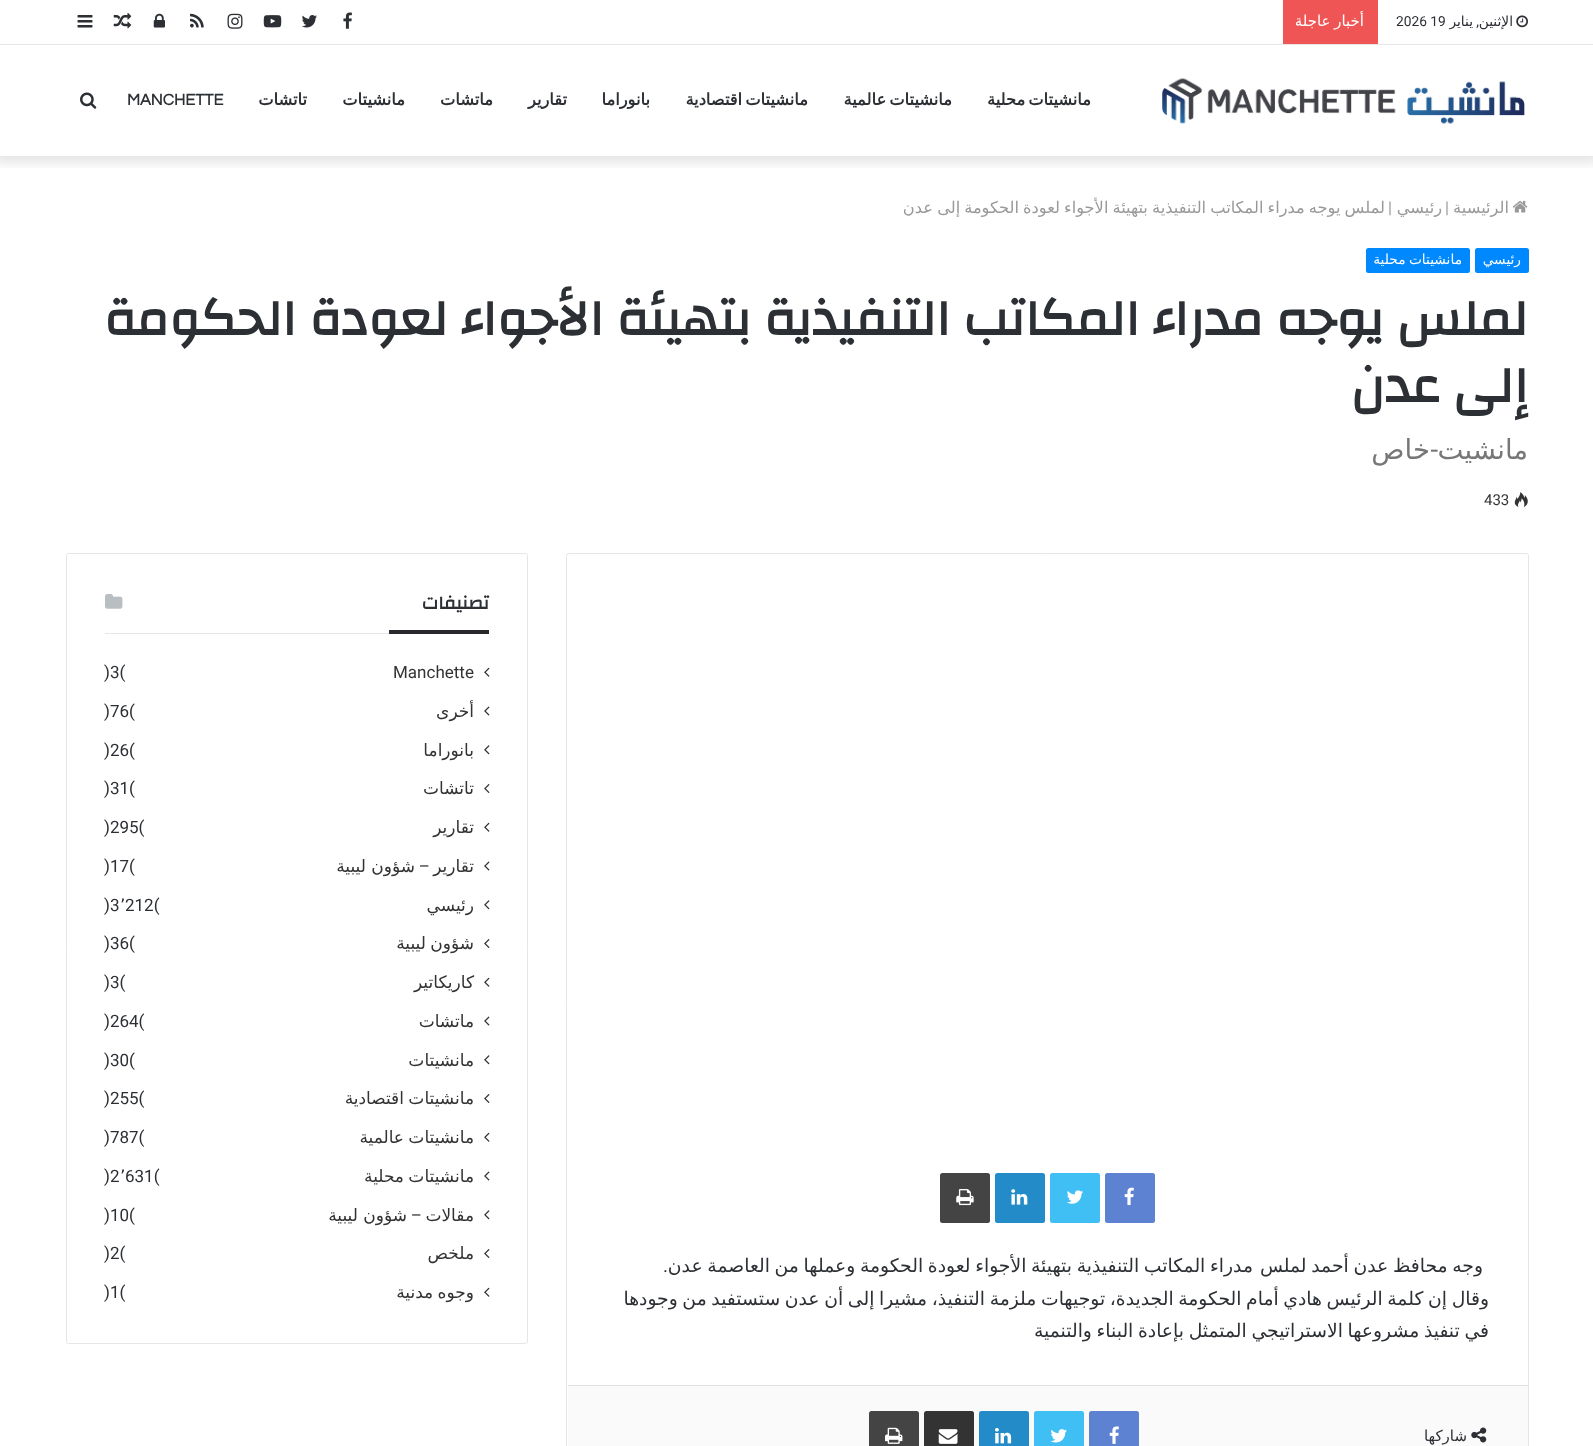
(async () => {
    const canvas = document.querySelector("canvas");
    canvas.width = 1593;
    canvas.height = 1446;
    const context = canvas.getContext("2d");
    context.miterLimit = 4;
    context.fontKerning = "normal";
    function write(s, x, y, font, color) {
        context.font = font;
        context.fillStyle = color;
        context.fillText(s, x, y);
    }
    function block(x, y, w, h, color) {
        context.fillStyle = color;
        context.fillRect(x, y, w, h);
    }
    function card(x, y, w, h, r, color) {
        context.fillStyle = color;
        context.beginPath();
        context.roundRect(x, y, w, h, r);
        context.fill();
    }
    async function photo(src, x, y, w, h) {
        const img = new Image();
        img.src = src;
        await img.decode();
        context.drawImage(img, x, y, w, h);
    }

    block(0, 0, 1593, 1446, "rgb(255, 255, 255)");
    context.save();
    context.beginPath();
    context.rect(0, 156, 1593, 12);
    context.clip();
    context.fillStyle = "rgba(0, 0, 0, 0.1)";
    context.filter = "blur(6px)";
    context.beginPath();
    context.rect(-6, -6, 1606, 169);
    context.fill();
    context.filter = "none";
    context.restore();
    block(0, 44, 1593, 1, "rgb(230, 230, 230)");
    await photo("media/1.png", 1516, 15, 12, 13);
    context.direction = "rtl";
    write("الإثنين", 1513, 26, "13.75px DejaVu Sans", "rgb(44, 47, 52)");
    write(",", 1479, 26, "13.75px Roboto", "rgb(44, 47, 52)");
    write("يناير", 1473, 26, "13.75px DejaVu Sans", "rgb(44, 47, 52)");
    context.direction = "ltr";
    write("2026 19", 1396, 26, "13.75px Roboto", "rgb(44, 47, 52)");
    block(1283, 0, 95, 44, "rgb(240, 85, 85)");
    context.wordSpacing = "-1px";
    context.direction = "rtl";
    write("أخبار عاجلة", 1364, 26, "15px DejaVu Sans", "rgb(255, 255, 255)");
    await photo("media/2.png", 343, 12, 9, 17);
    await photo("media/3.png", 301, 15, 16, 13);
    await photo("media/4.png", 263, 15, 19, 13);
    await photo("media/5.png", 227, 13, 16, 16);
    await photo("media/6.png", 190, 13, 14, 15);
    await photo("media/7.png", 153, 13, 12, 15);
    await photo("media/8.png", 113, 12, 19, 17);
    await photo("media/9.png", 77, 15, 16, 13);
    await photo("media/10.png", 1162, 78, 363, 46);
    context.wordSpacing = "-2px";
    write("مانشيتات محلية", 1091, 105, "bold 16.25px DejaVu Sans", "rgb(44, 47, 52)");
    write("مانشيتات عالمية", 952, 105, "bold 16.25px DejaVu Sans", "rgb(44, 47, 52)");
    write("مانشيتات اقتصادية", 808, 105, "bold 16.25px DejaVu Sans", "rgb(44, 47, 52)");
    context.wordSpacing = "0px";
    write("بانوراما", 650, 105, "bold 16.25px DejaVu Sans", "rgb(44, 47, 52)");
    write("تقارير", 567, 105, "bold 16.25px DejaVu Sans", "rgb(44, 47, 52)");
    write("ماتشات", 493, 105, "bold 16.25px DejaVu Sans", "rgb(44, 47, 52)");
    write("مانشيتات", 405, 105, "bold 16.25px DejaVu Sans", "rgb(44, 47, 52)");
    write("تاتشات", 307, 105, "bold 16.25px DejaVu Sans", "rgb(44, 47, 52)");
    context.direction = "ltr";
    write("MANCHETTE", 127, 105, "bold 16.25px Questrial", "rgb(44, 47, 52)");
    await photo("media/11.png", 80, 92, 17, 17);
    await photo("media/12.png", 1512, 200, 16, 13);
    context.direction = "rtl";
    write("الرئيسية", 1509, 213, "16.25px DejaVu Sans", "rgb(153, 153, 153)");
    context.direction = "ltr";
    write("|", 1445, 213, "16.25px Roboto", "rgb(153, 153, 153)");
    context.direction = "rtl";
    write("رئيسي", 1442, 213, "16.25px DejaVu Sans", "rgb(153, 153, 153)");
    context.direction = "ltr";
    write("|", 1388, 213, "16.25px Roboto", "rgb(153, 153, 153)");
    context.wordSpacing = "-1.1px";
    context.direction = "rtl";
    write("لملس يوجه مدراء المكاتب التنفيذية بتهيئة الأجواء لعودة الحكومة إلى", 1385, 213, "16.25px DejaVu Sans", "rgb(153, 153, 153)");
    context.wordSpacing = "0px";
    write("عدن", 933, 213, "16.25px DejaVu Sans", "rgb(153, 153, 153)");
    card(1475, 248, 54, 25, 2.5, "rgb(0, 136, 255)");
    write("رئيسي", 1521, 264, "13.75px DejaVu Sans", "rgb(255, 255, 255)");
    card(1366, 248, 104, 25, 2.5, "rgb(0, 136, 255)");
    context.wordSpacing = "-1px";
    write("مانشيتات محلية", 1462, 264, "13.75px DejaVu Sans", "rgb(255, 255, 255)");
    context.wordSpacing = "0px";
    write("لملس يوجه مدراء المكاتب التنفيذية بتهيئة الأجواء لعودة الحكومة", 1528, 335, "bold 51.25px Changa", "rgb(44, 47, 52)");
    write("إلى", 1528, 402, "bold 51.25px Changa", "rgb(44, 47, 52)");
    write("عدن", 1440, 402, "bold 51.25px Changa", "rgb(44, 47, 52)");
    write("مانشيت", 1528, 459, "27.5px DejaVu Sans", "rgb(119, 119, 119)");
    write("-", 1438, 459, "27.5px Roboto", "rgb(119, 119, 119)");
    write("خاص", 1430, 459, "27.5px DejaVu Sans", "rgb(119, 119, 119)");
    await photo("media/13.png", 1514, 492, 14, 15);
    context.direction = "ltr";
    write("433", 1484, 505, "15px Roboto", "rgb(51, 51, 51)");
    context.beginPath();
    context.roundRect(66.5, 553.5, 461, 790, 2);
    context.strokeStyle = "rgb(230, 230, 230)";
    context.stroke();
    block(105, 633, 284, 1, "rgb(230, 230, 230)");
    context.direction = "rtl";
    write("تصنيفات", 489, 609, "bold 18.75px Changa", "rgb(44, 47, 52)");
    await photo("media/14.png", 105, 594, 18, 15);
    block(389, 630, 100, 4, "rgb(39, 41, 45)");
    await photo("media/15.png", 484, 667, 6, 10);
    context.direction = "ltr";
    write("Manchette", 393, 678, "17px Roboto", "rgb(51, 51, 51)");
    write(")3(", 104, 678, "17px Roboto", "rgb(44, 47, 52)");
    await photo("media/16.png", 484, 706, 6, 10);
    context.direction = "rtl";
    write("أخرى", 474, 717, "17px DejaVu Sans", "rgb(51, 51, 51)");
    context.direction = "ltr";
    write(")76(", 104, 717, "17px Roboto", "rgb(44, 47, 52)");
    await photo("media/17.png", 484, 745, 6, 10);
    context.direction = "rtl";
    write("بانوراما", 474, 756, "17px DejaVu Sans", "rgb(51, 51, 51)");
    context.direction = "ltr";
    write(")26(", 104, 756, "17px Roboto", "rgb(44, 47, 52)");
    await photo("media/18.png", 484, 784, 6, 9);
    context.direction = "rtl";
    write("تاتشات", 474, 794, "17px DejaVu Sans", "rgb(51, 51, 51)");
    context.direction = "ltr";
    write(")31(", 104, 794, "17px Roboto", "rgb(44, 47, 52)");
    await photo("media/15.png", 484, 822, 6, 10);
    context.direction = "rtl";
    write("تقارير", 474, 833, "17px DejaVu Sans", "rgb(51, 51, 51)");
    context.direction = "ltr";
    write(")295(", 104, 833, "17px Roboto", "rgb(44, 47, 52)");
    await photo("media/16.png", 484, 861, 6, 10);
    context.direction = "rtl";
    write("تقارير", 474, 872, "17px DejaVu Sans", "rgb(51, 51, 51)");
    write("–", 430, 872, "17px Roboto", "rgb(51, 51, 51)");
    write("شؤون ليبية", 415, 872, "17px DejaVu Sans", "rgb(51, 51, 51)");
    context.direction = "ltr";
    write(")17(", 104, 872, "17px Roboto", "rgb(44, 47, 52)");
    await photo("media/17.png", 484, 900, 6, 10);
    context.direction = "rtl";
    write("رئيسي", 474, 911, "17px DejaVu Sans", "rgb(51, 51, 51)");
    context.direction = "ltr";
    write("212(", 125, 911, "17px Roboto", "rgb(44, 47, 52)");
    write("٬", 120, 911, "17px DejaVu Sans", "rgb(44, 47, 52)");
    write(")3", 104, 911, "17px Roboto", "rgb(44, 47, 52)");
    await photo("media/18.png", 484, 939, 6, 9);
    context.wordSpacing = "-1px";
    context.direction = "rtl";
    write("شؤون ليبية", 474, 949, "17px DejaVu Sans", "rgb(51, 51, 51)");
    context.wordSpacing = "0px";
    context.direction = "ltr";
    write(")36(", 104, 949, "17px Roboto", "rgb(44, 47, 52)");
    await photo("media/15.png", 484, 977, 6, 10);
    context.direction = "rtl";
    write("كاريكاتير", 474, 988, "17px DejaVu Sans", "rgb(51, 51, 51)");
    context.direction = "ltr";
    write(")3(", 104, 988, "17px Roboto", "rgb(44, 47, 52)");
    await photo("media/16.png", 484, 1016, 6, 10);
    context.direction = "rtl";
    write("ماتشات", 474, 1027, "17px DejaVu Sans", "rgb(51, 51, 51)");
    context.direction = "ltr";
    write(")264(", 104, 1027, "17px Roboto", "rgb(44, 47, 52)");
    await photo("media/17.png", 484, 1055, 6, 10);
    context.direction = "rtl";
    write("مانشيتات", 474, 1066, "17px DejaVu Sans", "rgb(51, 51, 51)");
    context.direction = "ltr";
    write(")30(", 104, 1066, "17px Roboto", "rgb(44, 47, 52)");
    await photo("media/18.png", 484, 1094, 6, 9);
    context.wordSpacing = "-1px";
    context.direction = "rtl";
    write("مانشيتات اقتصادية", 474, 1104, "17px DejaVu Sans", "rgb(51, 51, 51)");
    context.wordSpacing = "0px";
    context.direction = "ltr";
    write(")255(", 104, 1104, "17px Roboto", "rgb(44, 47, 52)");
    await photo("media/15.png", 484, 1132, 6, 10);
    context.wordSpacing = "-1px";
    context.direction = "rtl";
    write("مانشيتات عالمية", 474, 1143, "17px DejaVu Sans", "rgb(51, 51, 51)");
    context.wordSpacing = "0px";
    context.direction = "ltr";
    write(")787(", 104, 1143, "17px Roboto", "rgb(44, 47, 52)");
    await photo("media/16.png", 484, 1171, 6, 10);
    context.wordSpacing = "-1px";
    context.direction = "rtl";
    write("مانشيتات محلية", 474, 1182, "17px DejaVu Sans", "rgb(51, 51, 51)");
    context.wordSpacing = "0px";
    context.direction = "ltr";
    write("631(", 125, 1182, "17px Roboto", "rgb(44, 47, 52)");
    write("٬", 120, 1182, "17px DejaVu Sans", "rgb(44, 47, 52)");
    write(")2", 104, 1182, "17px Roboto", "rgb(44, 47, 52)");
    await photo("media/17.png", 484, 1210, 6, 10);
    context.direction = "rtl";
    write("مقالات", 474, 1221, "17px DejaVu Sans", "rgb(51, 51, 51)");
    write("–", 422, 1221, "17px Roboto", "rgb(51, 51, 51)");
    write("شؤون ليبية", 407, 1221, "17px DejaVu Sans", "rgb(51, 51, 51)");
    context.direction = "ltr";
    write(")10(", 104, 1221, "17px Roboto", "rgb(44, 47, 52)");
    await photo("media/18.png", 484, 1249, 6, 9);
    context.direction = "rtl";
    write("ملخص", 474, 1259, "17px DejaVu Sans", "rgb(51, 51, 51)");
    context.direction = "ltr";
    write(")2(", 104, 1259, "17px Roboto", "rgb(44, 47, 52)");
    await photo("media/15.png", 484, 1287, 6, 10);
    context.wordSpacing = "-1px";
    context.direction = "rtl";
    write("وجوه مدنية", 474, 1298, "17px DejaVu Sans", "rgb(51, 51, 51)");
    context.wordSpacing = "0px";
    context.direction = "ltr";
    write(")1(", 104, 1298, "17px Roboto", "rgb(44, 47, 52)");
    context.beginPath();
    context.roundRect(566.5, 553.5, 962, 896, 2);
    context.stroke();
    card(1105, 1173, 50, 50, 2.5, "rgb(93, 130, 209)");
    await photo("media/19.png", 1124, 1187, 10, 19);
    card(1050, 1173, 50, 50, 2.5, "rgb(64, 191, 245)");
    await photo("media/20.png", 1067, 1190, 16, 14);
    card(995, 1173, 50, 50, 2.5, "rgb(35, 140, 200)");
    await photo("media/21.png", 1011, 1189, 17, 16);
    card(940, 1173, 50, 50, 2.5, "rgb(68, 68, 68)");
    await photo("media/22.png", 956, 1189, 18, 17);
    context.wordSpacing = "-1.25px";
    context.direction = "rtl";
    write("وجه محافظ عدن أحمد لملس", 1483, 1272, "18.75px DejaVu Sans", "rgb(44, 47, 52)");
    write("مدراء المكاتب التنفيذية بتهيئة الأجواء لعودة الحكومة وعملها من العاصمة عدن", 1253, 1272, "18.75px DejaVu Sans", "rgb(44, 47, 52)");
    context.wordSpacing = "0px";
    write(".", 668, 1272, "18.75px Roboto", "rgb(44, 47, 52)");
    context.wordSpacing = "-1.3px";
    write("وقال إن كلمة الرئيس هادي أمام الحكومة الجديدة، توجيهات ملزمة التنفيذ، مشيرا إلى أن عدن ستستفيد من وجودها", 1489, 1305, "18.75px DejaVu Sans", "rgb(44, 47, 52)");
    write("في تنفيذ مشروعها الاستراتيجي المتمثل بإعادة البناء والتنمية", 1489, 1337, "18.75px DejaVu Sans", "rgb(44, 47, 52)");
    block(568, 1386, 960, 60, "rgb(250, 250, 250)");
    block(568, 1385, 960, 1, "rgb(225, 225, 225)");
    await photo("media/23.png", 1471, 1427, 16, 16);
    context.wordSpacing = "0px";
    write("شاركها", 1467, 1441, "15px DejaVu Sans", "rgb(44, 47, 52)");
    card(1089, 1411, 50, 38, 2.5, "rgb(93, 130, 209)");
    await photo("media/24.png", 1109, 1426, 10, 18);
    card(1034, 1411, 50, 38, 2.5, "rgb(64, 191, 245)");
    await photo("media/25.png", 1050, 1429, 17, 14);
    card(979, 1411, 50, 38, 2.5, "rgb(35, 140, 200)");
    await photo("media/26.png", 995, 1428, 17, 16);
    card(924, 1411, 50, 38, 2.5, "rgb(51, 51, 51)");
    await photo("media/27.png", 938, 1429, 20, 15);
    card(869, 1411, 50, 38, 2.5, "rgb(68, 68, 68)");
    await photo("media/28.png", 885, 1427, 18, 17);
})();
